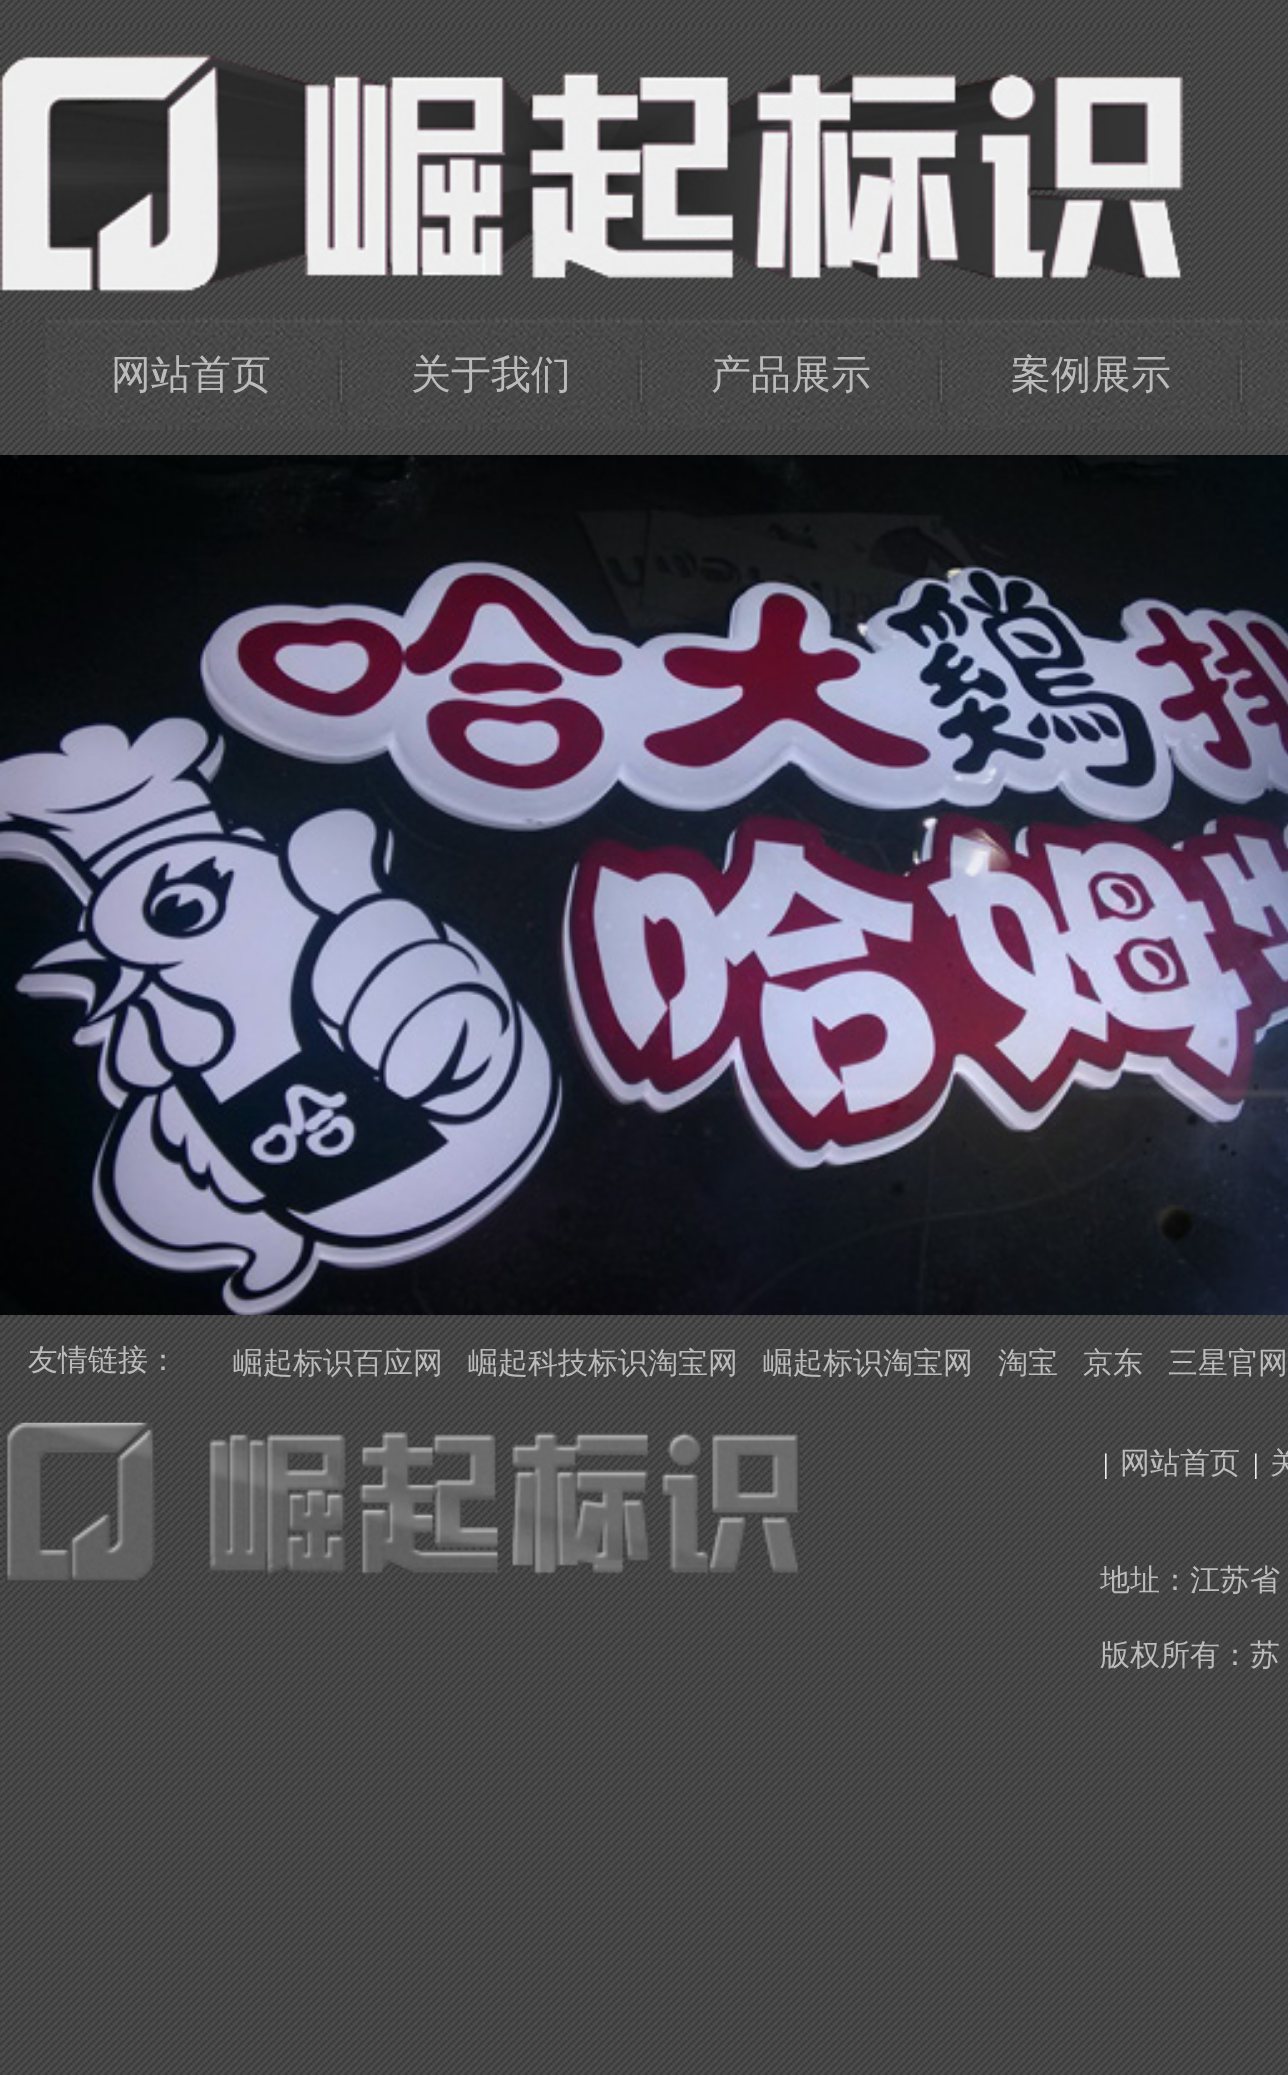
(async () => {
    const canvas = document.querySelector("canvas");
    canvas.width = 1288;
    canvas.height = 2075;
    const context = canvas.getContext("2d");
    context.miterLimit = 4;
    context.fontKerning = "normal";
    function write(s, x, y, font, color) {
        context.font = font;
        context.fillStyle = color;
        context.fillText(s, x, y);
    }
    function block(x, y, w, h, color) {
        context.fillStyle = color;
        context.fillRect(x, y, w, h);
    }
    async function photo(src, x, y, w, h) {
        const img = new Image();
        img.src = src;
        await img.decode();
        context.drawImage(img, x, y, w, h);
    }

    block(0, 0, 1288, 2075, "rgb(255, 255, 255)");
    await photo("media/1.png", 0, 0, 1288, 2075);
    await photo("media/2.png", 0, 25, 1190, 298);
    await photo("media/3.png", 42, 317, 301, 113);
    write("网站首页", 111, 388, "500 40px WenQuanYi Zen Hei", "rgb(187, 187, 187)");
    await photo("media/4.png", 342, 317, 301, 113);
    write("关于我们", 411, 388, "500 40px WenQuanYi Zen Hei", "rgb(187, 187, 187)");
    await photo("media/5.png", 642, 317, 301, 113);
    write("产品展示", 711, 388, "500 40px WenQuanYi Zen Hei", "rgb(187, 187, 187)");
    await photo("media/6.png", 942, 317, 301, 113);
    write("案例展示", 1011, 388, "500 40px WenQuanYi Zen Hei", "rgb(187, 187, 187)");
    await photo("media/7.png", 1242, 317, 46, 113);
    await photo("media/8.png", 0, 455, 1288, 860);
    await photo("media/11.png", 0, 1322, 1288, 1);
    await photo("media/9.png", 0, 1315, 1288, 8);
    write("友情链接：", 28, 1370, "500 30px WenQuanYi Zen Hei", "rgb(187, 187, 187)");
    write("崛起标识百应网", 233, 1373, "500 30px WenQuanYi Zen Hei", "rgb(187, 187, 187)");
    write("崛起科技标识淘宝网", 468, 1373, "500 30px WenQuanYi Zen Hei", "rgb(187, 187, 187)");
    write("崛起标识淘宝网", 763, 1373, "500 30px WenQuanYi Zen Hei", "rgb(187, 187, 187)");
    write("淘宝", 998, 1373, "500 30px WenQuanYi Zen Hei", "rgb(187, 187, 187)");
    write("京东", 1083, 1373, "500 30px WenQuanYi Zen Hei", "rgb(187, 187, 187)");
    write("三星官网", 1168, 1373, "500 30px WenQuanYi Zen Hei", "rgb(187, 187, 187)");
    await photo("media/10.png", 0, 1422, 803, 161);
    write("|", 1103, 1473, "28px Liberation Serif", "rgb(255, 255, 255)");
    write("网站首页", 1120, 1473, "500 30px WenQuanYi Zen Hei", "rgb(187, 187, 187)");
    write("|", 1253, 1473, "28px Liberation Serif", "rgb(255, 255, 255)");
    write("关", 1270, 1473, "500 30px WenQuanYi Zen Hei", "rgb(187, 187, 187)");
    write("地址：江苏省", 1100, 1590, "500 30px WenQuanYi Zen Hei", "rgb(187, 187, 187)");
    write("版权所有：苏", 1100, 1665, "500 30px WenQuanYi Zen Hei", "rgb(187, 187, 187)");
})();
